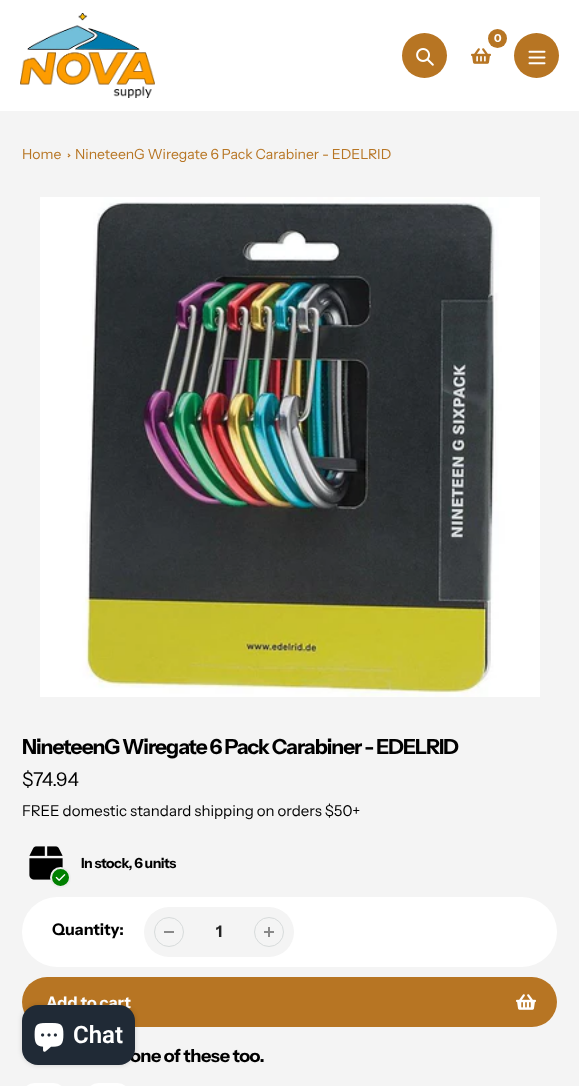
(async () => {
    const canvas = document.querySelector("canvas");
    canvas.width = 579;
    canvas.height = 1086;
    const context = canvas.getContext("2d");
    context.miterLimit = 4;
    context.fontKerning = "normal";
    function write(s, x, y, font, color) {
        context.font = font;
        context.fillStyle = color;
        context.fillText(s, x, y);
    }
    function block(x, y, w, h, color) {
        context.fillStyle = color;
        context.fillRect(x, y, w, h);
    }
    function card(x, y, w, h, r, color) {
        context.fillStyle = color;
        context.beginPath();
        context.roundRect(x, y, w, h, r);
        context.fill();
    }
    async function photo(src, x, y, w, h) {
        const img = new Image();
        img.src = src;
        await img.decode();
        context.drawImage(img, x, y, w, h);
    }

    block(0, 0, 579, 1086, "rgb(244, 244, 244)");
    block(0, 0, 579, 111, "rgb(255, 255, 255)");
    await photo("media/1.png", 20, 13, 135, 85);
    context.fillStyle = "rgb(183, 117, 35)";
    context.beginPath();
    context.arc(424.5, 55.5, 22.5, 0, Math.PI * 2);
    context.fill();
    await photo("media/2.png", 416, 48, 18, 18);
    context.beginPath();
    context.arc(497.5, 38.5, 9.5, 0, Math.PI * 2);
    context.fill();
    write("0", 494, 42, "bold 11px Instrument Sans", "rgb(255, 255, 255)");
    await photo("media/3.png", 471, 48, 20, 16);
    context.fillStyle = "rgb(183, 117, 35)";
    context.beginPath();
    context.arc(536.5, 55.5, 22.5, 0, Math.PI * 2);
    context.fill();
    await photo("media/4.png", 528, 50, 18, 15);
    write("Home", 22, 159, "14px Instrument Sans", "rgb(183, 117, 35)");
    context.beginPath();
    context.moveTo(68.5, 153.5);
    context.lineTo(70.5, 155.5);
    context.lineTo(69.5, 156);
    context.lineTo(67.5, 154);
    context.closePath();
    context.fill();
    context.beginPath();
    context.moveTo(69.5, 155);
    context.lineTo(70.5, 155.5);
    context.lineTo(68.5, 157.5);
    context.lineTo(67.5, 156.5);
    context.closePath();
    context.fill();
    write("NineteenG Wiregate 6 Pack Carabiner - EDELRID", 75, 159, "14px Instrument Sans", "rgb(183, 117, 35)");
    await photo("media/5.png", 40, 197, 500, 500);
    context.letterSpacing = "-1px";
    write("NineteenG Wiregate 6 Pack Carabiner - EDELRID", 22, 754, "bold 20.8px Instrument Sans", "rgb(0, 0, 0)");
    context.letterSpacing = "0px";
    write("$74.94", 22, 786, "19px Instrument Sans", "rgb(0, 0, 0)");
    write("FREE domestic standard shipping on orders $50+", 22, 816, "15px Instrument Sans", "rgb(0, 0, 0)");
    await photo("media/6.png", 29, 846, 34, 34);
    context.fillStyle = "rgb(0, 128, 0)";
    context.beginPath();
    context.arc(60.5, 877.5, 9.5, 0, Math.PI * 2);
    context.fill();
    context.strokeStyle = "rgb(237, 237, 237)";
    context.lineWidth = 2;
    context.stroke();
    await photo("media/7.png", 55, 874, 11, 7);
    context.letterSpacing = "-0.5px";
    write("In stock, 6 units", 81, 868, "bold 14px Instrument Sans", "rgb(0, 0, 0)");
    card(22, 897, 535, 70, 35, "rgb(255, 255, 255)");
    context.letterSpacing = "0px";
    write("Quantity:", 52, 935, "bold 16px Instrument Sans", "rgb(0, 0, 0)");
    card(144, 907, 150, 50, 25, "rgb(244, 244, 244)");
    block(164, 931, 10, 2, "rgb(137, 137, 137)");
    context.beginPath();
    context.arc(169, 932, 14.5, 0, Math.PI * 2);
    context.strokeStyle = "rgb(215, 219, 219)";
    context.lineWidth = 1;
    context.stroke();
    write("1", 216, 937, "bold 16px Instrument Sans", "rgb(35, 35, 35)");
    await photo("media/8.png", 264, 927, 10, 10);
    context.beginPath();
    context.arc(269, 932, 14.5, 0, Math.PI * 2);
    context.stroke();
    card(22, 977, 535, 50, 25, "rgb(183, 117, 35)");
    write("Add to cart", 46, 1008, "bold 16px Instrument Sans", "rgb(255, 255, 255)");
    await photo("media/9.png", 516, 994, 20, 16);
    context.letterSpacing = "-0.5px";
    write("one of these too.", 130, 1062, "bold 18px Instrument Sans", "rgb(0, 0, 0)");
    card(22, 1083, 44, 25, 22, "rgb(255, 255, 255)");
    card(86, 1083, 44, 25, 22, "rgb(255, 255, 255)");
    context.fillStyle = "rgba(0, 0, 0, 0.15)";
    context.filter = "blur(2.5px)";
    context.beginPath();
    context.roundRect(22, 1005, 113, 60, 16);
    context.fill();
    context.filter = "none";
    card(22, 1005, 113, 60, 16, "rgb(32, 42, 54)");
    await photo("media/10.png", 34, 1023, 30, 29);
    context.letterSpacing = "0px";
    write("Chat", 73, 1043, "600 24px Roboto", "rgb(255, 255, 255)");
})();
